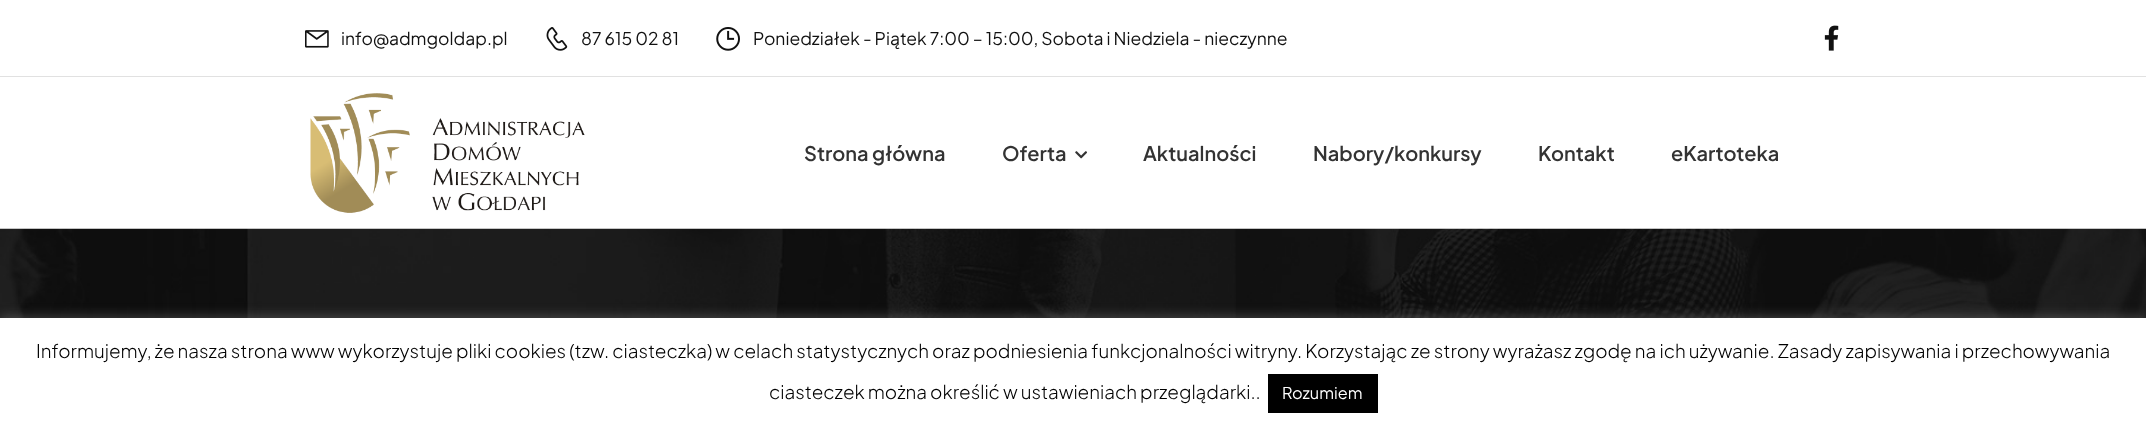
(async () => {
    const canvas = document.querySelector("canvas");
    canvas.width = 2146;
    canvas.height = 427;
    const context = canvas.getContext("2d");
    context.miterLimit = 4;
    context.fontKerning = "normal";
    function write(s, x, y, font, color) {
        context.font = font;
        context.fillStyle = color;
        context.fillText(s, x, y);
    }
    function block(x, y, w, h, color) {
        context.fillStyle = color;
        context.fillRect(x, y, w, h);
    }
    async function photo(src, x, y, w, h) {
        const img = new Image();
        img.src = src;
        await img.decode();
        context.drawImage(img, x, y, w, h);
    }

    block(0, 0, 2146, 427, "rgb(255, 255, 255)");
    block(0, 76, 2146, 1, "rgb(225, 225, 225)");
    await photo("media/1.png", 305, 30, 24, 18);
    write("info@admgoldap.pl", 341, 45, "17.5px Plus Jakarta Sans", "rgb(17, 17, 17)");
    await photo("media/2.png", 546, 27, 22, 24);
    write("87 615 02 81", 581, 45, "17.5px Plus Jakarta Sans", "rgb(17, 17, 17)");
    await photo("media/3.png", 716, 27, 24, 24);
    write("Poniedziałek - Piątek 7:00 – 15:00, Sobota i Niedziela - nieczynne", 753, 45, "17.5px Plus Jakarta Sans", "rgb(17, 17, 17)");
    await photo("media/4.png", 1824, 25, 15, 26);
    await photo("media/5.png", 310, 93, 275, 120);
    write("Strona główna", 804, 161, "600 20px Plus Jakarta Sans", "rgb(51, 51, 51)");
    write("Oferta", 1002, 161, "600 20px Plus Jakarta Sans", "rgb(51, 51, 51)");
    await photo("media/6.png", 1075, 151, 12, 8);
    write("Aktualności", 1143, 161, "600 20px Plus Jakarta Sans", "rgb(51, 51, 51)");
    write("Nabory/konkursy", 1313, 161, "600 20px Plus Jakarta Sans", "rgb(51, 51, 51)");
    write("Kontakt", 1538, 161, "600 20px Plus Jakarta Sans", "rgb(51, 51, 51)");
    write("eKartoteka", 1671, 161, "600 20px Plus Jakarta Sans", "rgb(51, 51, 51)");
    await photo("media/7.png", 0, 228, 2146, 90);
    context.fillStyle = "rgba(172, 171, 171, 0.3)";
    context.filter = "blur(6px)";
    context.beginPath();
    context.rect(0, 316, 2146, 110);
    context.fill();
    context.filter = "none";
    block(0, 318, 2146, 109, "rgb(255, 255, 255)");
    write("Informujemy, że nasza strona www wykorzystuje pliki cookies (tzw. ciasteczka) w celach statystycznych oraz podniesienia funkcjonalności witryny. Korzystając ze strony wyrażasz zgodę na ich używanie. Zasady zapisywania i przechowywania", 36, 358, "300 18.75px Plus Jakarta Sans", "rgb(0, 0, 0)");
    write("ciasteczek można określić w ustawieniach przeglądarki..", 769, 399, "300 18.75px Plus Jakarta Sans", "rgb(0, 0, 0)");
    block(1268, 374, 110, 39, "rgb(0, 0, 0)");
    write("Rozumiem", 1282, 399, "16.25px Plus Jakarta Sans", "rgb(255, 255, 255)");
})();
